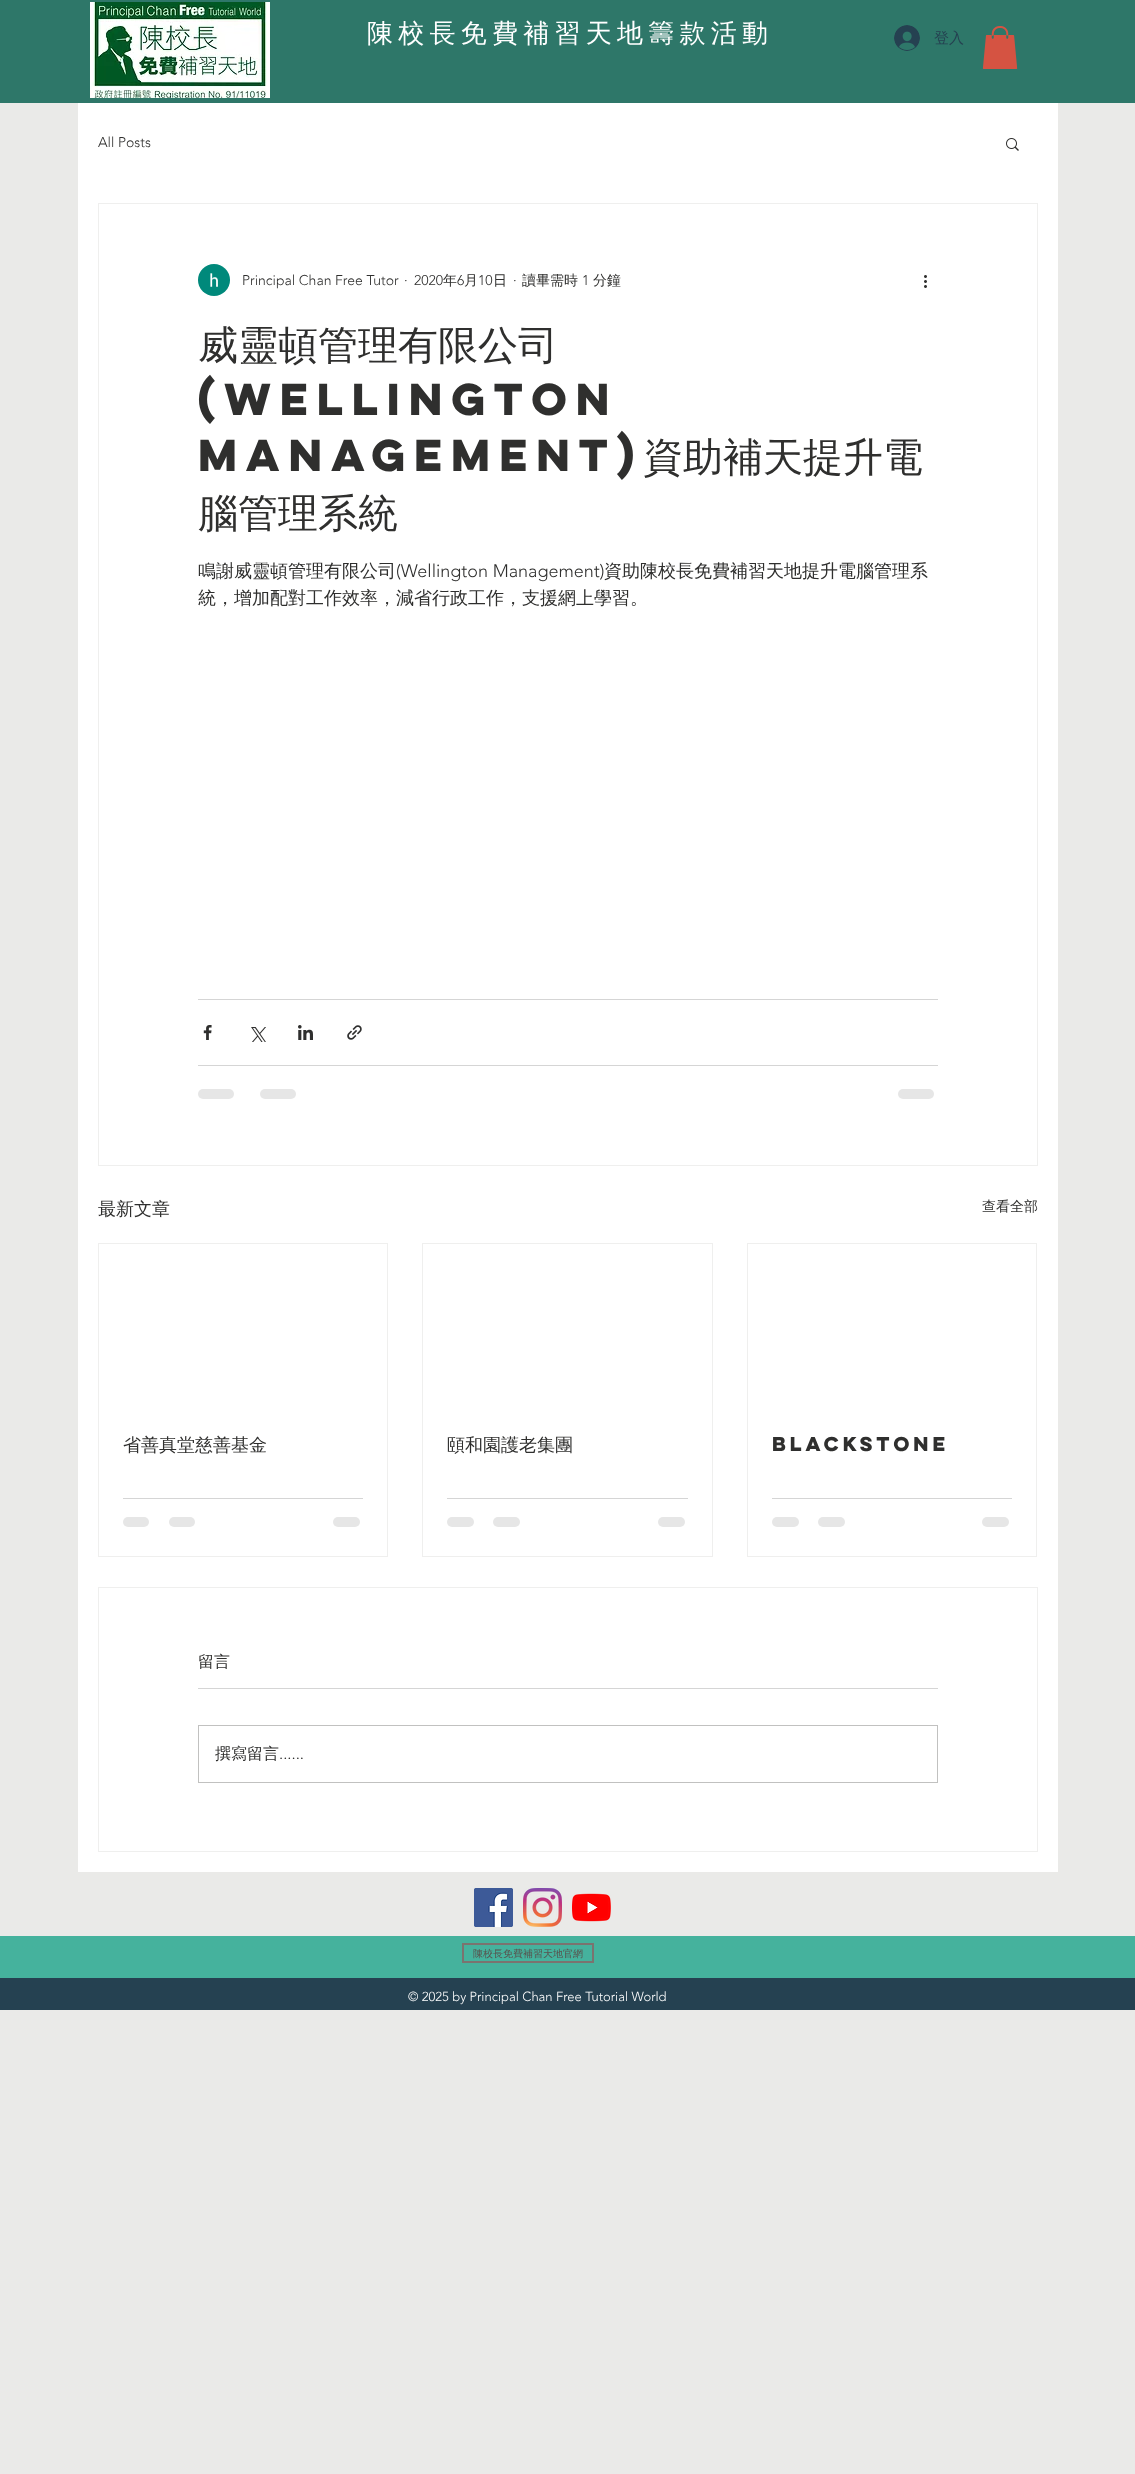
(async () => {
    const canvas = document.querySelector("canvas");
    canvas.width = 1135;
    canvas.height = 2474;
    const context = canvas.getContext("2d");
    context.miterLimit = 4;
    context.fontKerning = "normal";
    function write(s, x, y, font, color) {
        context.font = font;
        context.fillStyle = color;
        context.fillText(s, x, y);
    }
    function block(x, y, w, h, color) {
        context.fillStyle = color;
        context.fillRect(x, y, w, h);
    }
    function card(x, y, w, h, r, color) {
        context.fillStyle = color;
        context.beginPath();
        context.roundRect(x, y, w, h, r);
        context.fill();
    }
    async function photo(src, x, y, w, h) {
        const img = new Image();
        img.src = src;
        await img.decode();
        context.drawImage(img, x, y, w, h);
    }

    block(0, 0, 1135, 2474, "rgb(234, 234, 232)");
    block(0, 0, 1135, 103, "rgb(46, 119, 105)");
    context.letterSpacing = "5.25px";
    write("陳校長免費補習天地籌款活動", 367, 42, "500 26px WenQuanYi Zen Hei", "rgb(255, 255, 255)");
    await photo("media/1.png", 90, 2, 180, 96);
    await photo("media/2.png", 894, 25, 26, 26);
    context.letterSpacing = "0px";
    write("登入", 934, 43, "500 15px WenQuanYi Zen Hei", "rgb(37, 65, 81)");
    await photo("media/3.png", 982, 26, 36, 43);
    block(78, 103, 980, 1769, "rgb(255, 255, 255)");
    write("All Posts", 98, 147, "300 14px 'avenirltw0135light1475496'", "rgb(47, 47, 46)");
    await photo("media/4.png", 1006, 138, 13, 13);
    context.strokeStyle = "rgb(239, 239, 238)";
    context.strokeRect(98.5, 203.5, 939, 962);
    await photo("media/5.png", 198, 264, 32, 32);
    write("Principal Chan Free Tutor", 242, 285, "300 14px 'avenirltw0135light1475496'", "rgb(47, 47, 46)");
    write("·", 404, 285, "300 14px 'avenirltw0135light1475496'", "rgb(47, 47, 46)");
    write("2020", 414, 285, "300 14px 'avenirltw0135light1475496'", "rgb(47, 47, 46)");
    write("年", 443, 285, "500 14px WenQuanYi Zen Hei", "rgb(47, 47, 46)");
    write("6", 457, 285, "300 14px 'avenirltw0135light1475496'", "rgb(47, 47, 46)");
    write("月", 464, 285, "500 14px WenQuanYi Zen Hei", "rgb(47, 47, 46)");
    write("10", 478, 285, "300 14px 'avenirltw0135light1475496'", "rgb(47, 47, 46)");
    write("日", 493, 285, "500 14px WenQuanYi Zen Hei", "rgb(47, 47, 46)");
    write("·", 513, 285, "300 14px 'avenirltw0135light1475496'", "rgb(47, 47, 46)");
    write("讀畢需時", 522, 285, "500 14px WenQuanYi Zen Hei", "rgb(47, 47, 46)");
    write("1", 582, 285, "300 14px 'avenirltw0135light1475496'", "rgb(47, 47, 46)");
    write("分鐘", 593, 285, "500 14px WenQuanYi Zen Hei", "rgb(47, 47, 46)");
    await photo("media/6.png", 924, 275, 3, 13);
    write("威靈頓管理有限公司", 198, 359, "500 40px WenQuanYi Zen Hei", "rgb(47, 47, 46)");
    write("(Wellington", 198, 415, "bold 40px 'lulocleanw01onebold'", "rgb(47, 47, 46)");
    write("Management)", 198, 471, "bold 40px 'lulocleanw01onebold'", "rgb(47, 47, 46)");
    write("資助補天提升電", 643, 471, "500 40px WenQuanYi Zen Hei", "rgb(47, 47, 46)");
    write("腦管理系統", 198, 527, "500 40px WenQuanYi Zen Hei", "rgb(47, 47, 46)");
    write("鳴謝威靈頓管理有限公司", 198, 577, "500 18px WenQuanYi Zen Hei", "rgb(47, 47, 46)");
    write("(Wellington Management)", 396, 577, "300 18px 'avenirltw0135light1475496'", "rgb(47, 47, 46)");
    write("資助陳校長免費補習天地提升電腦管理系", 604, 577, "500 18px WenQuanYi Zen Hei", "rgb(47, 47, 46)");
    write("統，增加配對工作效率，減省行政工作，支援網上學習。", 198, 604, "500 18px WenQuanYi Zen Hei", "rgb(47, 47, 46)");
    block(198, 999, 740, 1, "rgb(213, 213, 213)");
    await photo("media/7.png", 203, 1025, 9, 15);
    await photo("media/8.png", 251, 1027, 15, 15);
    await photo("media/9.png", 298, 1025, 15, 15);
    await photo("media/10.png", 347, 1025, 15, 15);
    block(198, 1065, 740, 1, "rgb(213, 213, 213)");
    card(198, 1089, 36, 10, 5, "rgb(230, 230, 230)");
    card(260, 1089, 36, 10, 5, "rgb(230, 230, 230)");
    card(898, 1089, 36, 10, 5, "rgb(230, 230, 230)");
    write("最新文章", 98, 1215, "500 18px WenQuanYi Zen Hei", "rgb(47, 47, 46)");
    write("查看全部", 982, 1211, "500 14px WenQuanYi Zen Hei", "rgb(47, 47, 46)");
    context.strokeRect(98.5, 1243.5, 289, 313);
    write("省善真堂慈善基金", 123, 1451, "500 18px WenQuanYi Zen Hei", "rgb(47, 47, 46)");
    block(123, 1498, 240, 1, "rgb(213, 213, 213)");
    card(123, 1517, 26, 10, 5, "rgb(230, 230, 230)");
    card(169, 1517, 26, 10, 5, "rgb(230, 230, 230)");
    card(333, 1517, 27, 10, 5, "rgb(230, 230, 230)");
    context.strokeRect(422.5, 1243.5, 290, 313);
    write("頤和園護老集團", 447, 1451, "500 18px WenQuanYi Zen Hei", "rgb(47, 47, 46)");
    block(447, 1498, 241, 1, "rgb(213, 213, 213)");
    card(447, 1517, 27, 10, 5, "rgb(230, 230, 230)");
    card(493, 1517, 27, 10, 5, "rgb(230, 230, 230)");
    card(658, 1517, 27, 10, 5, "rgb(230, 230, 230)");
    context.strokeRect(747.5, 1243.5, 289, 313);
    write("Blackstone", 772, 1451, "bold 18px 'lulocleanw01onebold'", "rgb(47, 47, 46)");
    block(772, 1498, 240, 1, "rgb(213, 213, 213)");
    card(772, 1517, 27, 10, 5, "rgb(230, 230, 230)");
    card(818, 1517, 27, 10, 5, "rgb(230, 230, 230)");
    card(982, 1517, 27, 10, 5, "rgb(230, 230, 230)");
    context.strokeRect(98.5, 1587.5, 939, 264);
    write("留言", 198, 1667, "500 16px WenQuanYi Zen Hei", "rgb(47, 47, 46)");
    block(198, 1688, 740, 1, "rgb(213, 213, 213)");
    context.strokeStyle = "rgb(193, 193, 192)";
    context.strokeRect(198.5, 1725.5, 739, 57);
    write("撰寫留言", 215, 1759, "500 16px WenQuanYi Zen Hei", "rgb(47, 47, 46)");
    write("......", 279, 1759, "300 16px 'avenirltw0135light1475496'", "rgb(47, 47, 46)");
    await photo("media/11.png", 474, 1888, 39, 39);
    await photo("media/12.png", 523, 1888, 39, 39);
    await photo("media/13.png", 572, 1893, 39, 29);
    block(0, 1936, 1135, 42, "rgb(69, 178, 157)");
    context.strokeStyle = "rgb(123, 115, 111)";
    context.lineWidth = 2;
    context.strokeRect(463, 1944, 130, 18);
    write("陳校長免費補習天地官網", 473, 1957, "500 10px WenQuanYi Zen Hei", "rgb(89, 81, 77)");
    block(0, 1978, 1135, 32, "rgb(37, 65, 81)");
    write("© 2025 by Principal Chan Free Tutorial World", 408, 2001, "300 13px 'avenirltw0135light1475496'", "rgb(255, 255, 255)");
})();
